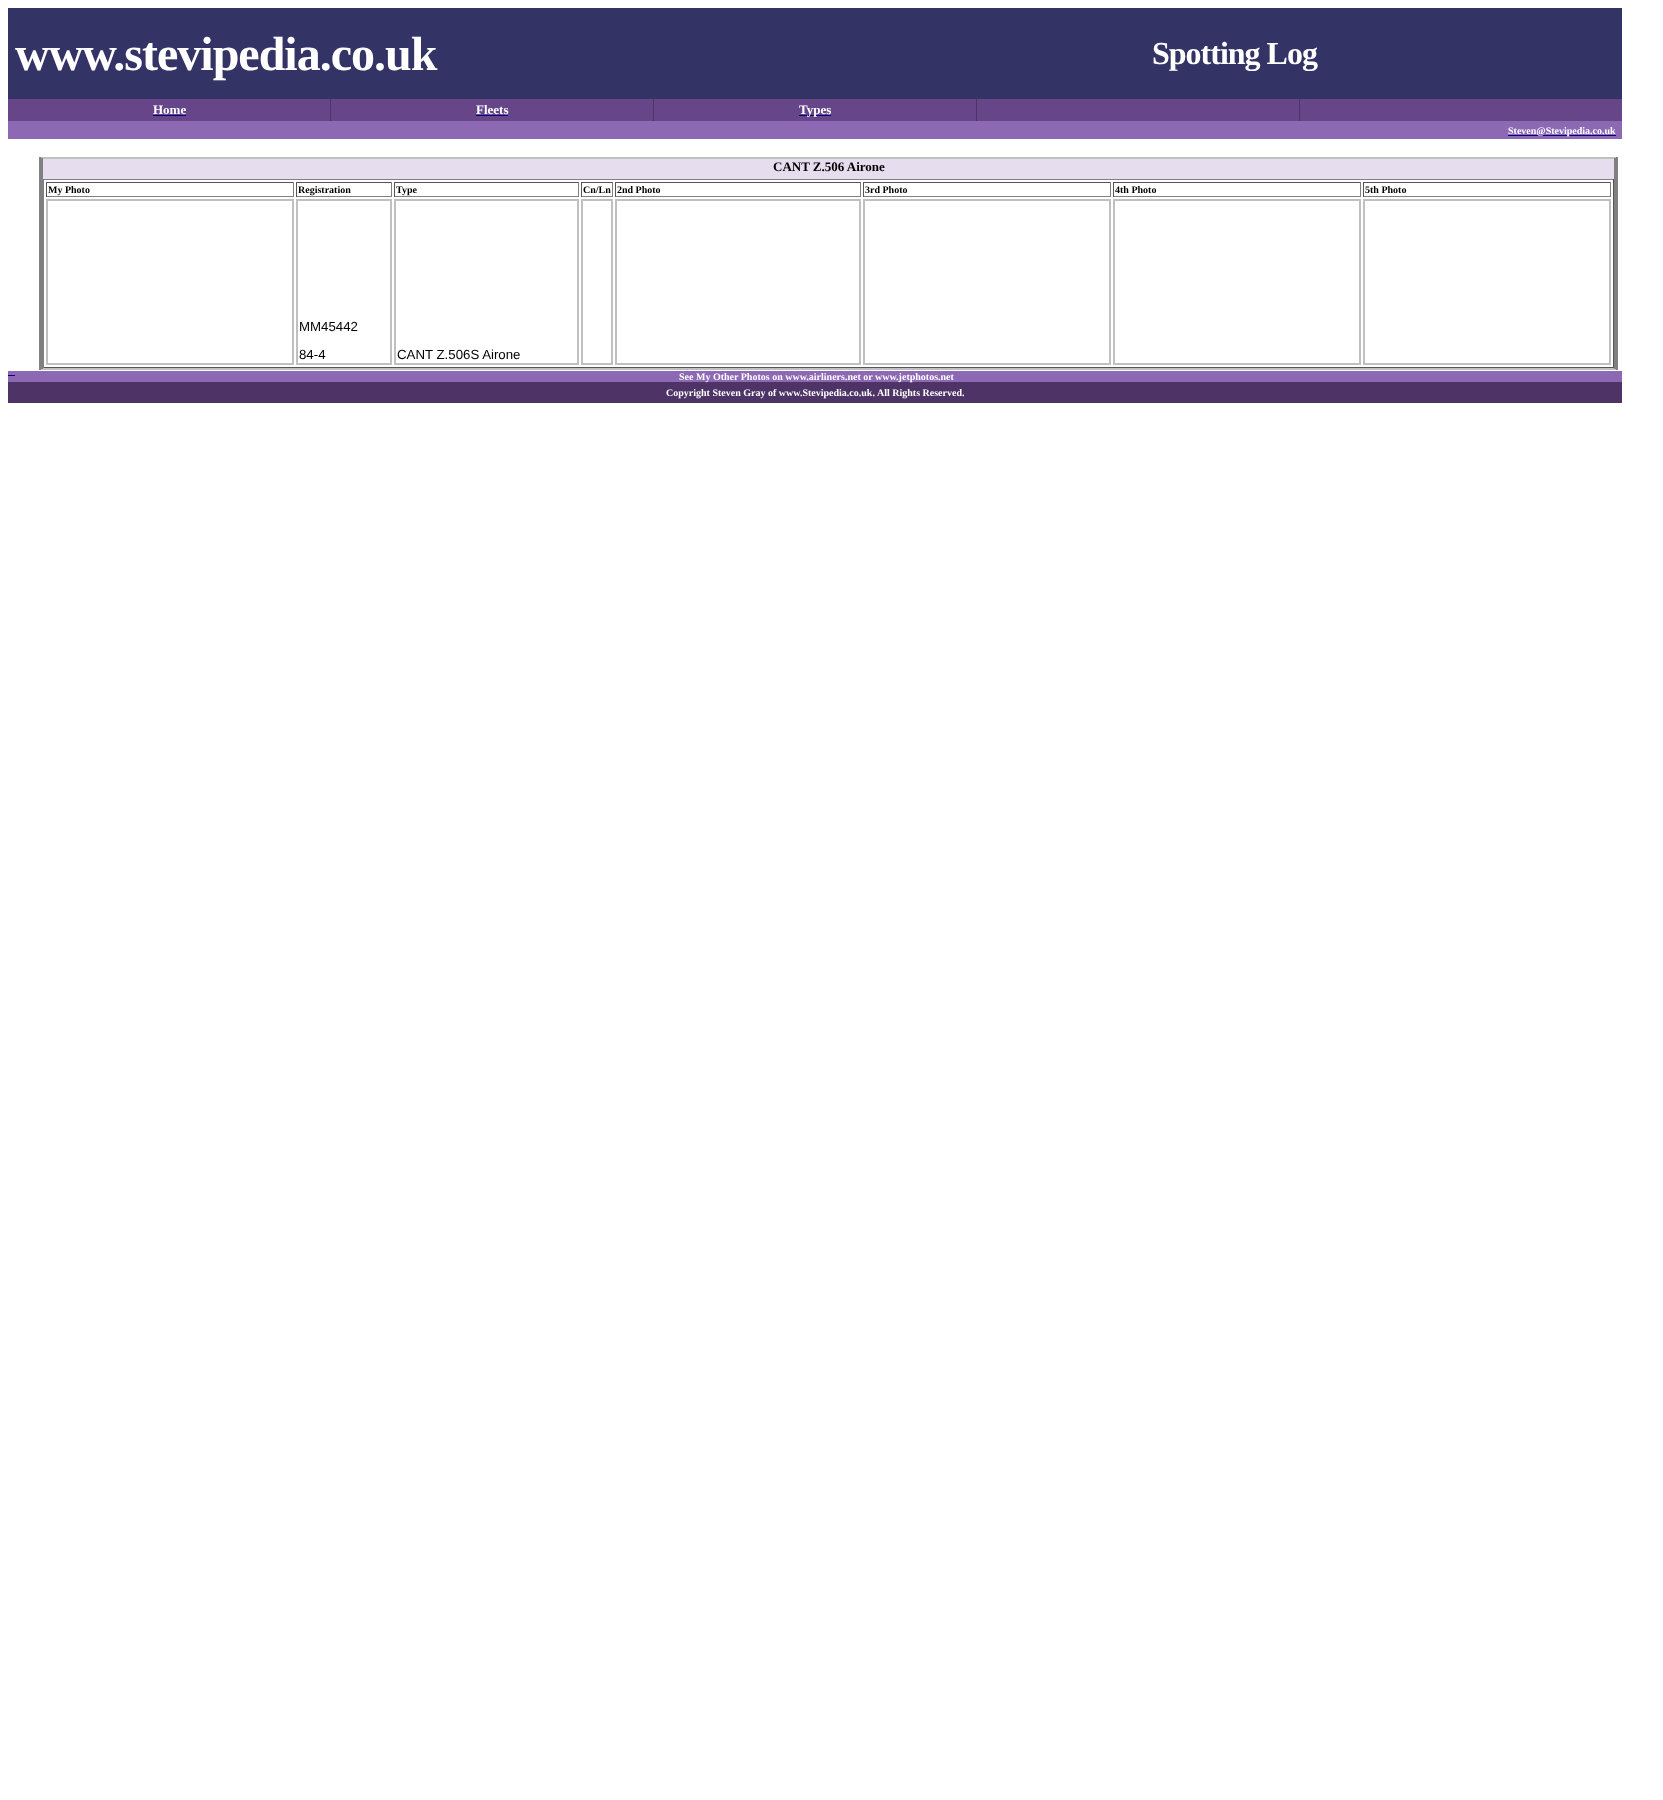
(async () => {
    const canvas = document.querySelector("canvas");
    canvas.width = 1663;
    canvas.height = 1800;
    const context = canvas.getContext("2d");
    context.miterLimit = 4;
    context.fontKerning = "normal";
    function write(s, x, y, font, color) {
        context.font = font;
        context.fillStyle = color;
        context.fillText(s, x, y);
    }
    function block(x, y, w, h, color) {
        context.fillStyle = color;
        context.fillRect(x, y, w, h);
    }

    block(0, 0, 1663, 1800, "rgb(255, 255, 255)");
    block(8, 8, 1614, 91, "rgb(51, 51, 102)");
    context.letterSpacing = "-1px";
    write("www.stevipedia.co.uk", 15, 70, "bold 48px Liberation Serif", "rgb(255, 255, 255)");
    write("Spotting Log", 1152, 64, "bold 32px Liberation Serif", "rgb(255, 255, 255)");
    block(8, 99, 322, 22, "rgb(103, 69, 137)");
    context.letterSpacing = "0px";
    write("Home", 153, 114, "bold 13px Liberation Serif", "rgb(255, 255, 255)");
    block(153, 115, 33, 1, "rgb(0, 0, 128)");
    block(331, 99, 322, 22, "rgb(103, 69, 137)");
    block(330, 99, 1, 23, "rgb(77, 51, 102)");
    write("Fleets", 476, 114, "bold 13px Liberation Serif", "rgb(255, 255, 255)");
    block(476, 115, 32, 1, "rgb(0, 0, 128)");
    block(654, 99, 322, 22, "rgb(103, 69, 137)");
    block(653, 99, 1, 23, "rgb(77, 51, 102)");
    block(799, 115, 32, 1, "rgb(0, 0, 128)");
    write("Types", 799, 114, "bold 13px Liberation Serif", "rgb(255, 255, 255)");
    block(977, 99, 322, 22, "rgb(103, 69, 137)");
    block(976, 99, 1, 23, "rgb(77, 51, 102)");
    block(1300, 99, 322, 22, "rgb(103, 69, 137)");
    block(1299, 99, 1, 23, "rgb(77, 51, 102)");
    block(8, 121, 1614, 18, "rgb(141, 104, 179)");
    block(1508, 135, 108, 1, "rgb(0, 0, 128)");
    write("Steven@Stevipedia.co.uk", 1508, 134, "bold 10px Liberation Serif", "rgb(255, 255, 255)");
    block(39, 157, 1579, 1, "rgb(192, 192, 192)");
    block(41, 158, 1575, 1, "rgb(192, 192, 192)");
    block(41, 368, 1575, 1, "rgb(192, 192, 192)");
    block(1614, 158, 2, 212, "rgb(128, 128, 128)");
    block(41, 158, 2, 212, "rgb(128, 128, 128)");
    block(39, 369, 1579, 1, "rgb(192, 192, 192)");
    block(1616, 157, 2, 214, "rgb(128, 128, 128)");
    block(39, 157, 2, 214, "rgb(128, 128, 128)");
    block(43, 159, 1571, 20, "rgb(230, 221, 238)");
    write("CANT Z.506 Airone", 773, 171, "bold 13px Liberation Serif", "rgb(0, 0, 0)");
    block(43, 179, 1571, 1, "rgb(128, 128, 128)");
    block(1613, 179, 1, 189, "rgb(85, 85, 85)");
    block(43, 367, 1571, 1, "rgb(85, 85, 85)");
    block(43, 179, 1, 189, "rgb(128, 128, 128)");
    block(46, 182, 248, 1, "rgb(85, 85, 85)");
    block(293, 182, 1, 15, "rgb(128, 128, 128)");
    block(46, 196, 248, 1, "rgb(128, 128, 128)");
    block(46, 182, 1, 15, "rgb(85, 85, 85)");
    write("My Photo", 48, 193, "bold 10px Liberation Serif", "rgb(0, 0, 0)");
    block(296, 182, 96, 1, "rgb(85, 85, 85)");
    block(391, 182, 1, 15, "rgb(128, 128, 128)");
    block(296, 196, 96, 1, "rgb(128, 128, 128)");
    block(296, 182, 1, 15, "rgb(85, 85, 85)");
    write("Registration", 298, 193, "bold 10px Liberation Serif", "rgb(0, 0, 0)");
    block(394, 182, 185, 1, "rgb(85, 85, 85)");
    block(578, 182, 1, 15, "rgb(128, 128, 128)");
    block(394, 196, 185, 1, "rgb(128, 128, 128)");
    block(394, 182, 1, 15, "rgb(85, 85, 85)");
    write("Type", 396, 193, "bold 10px Liberation Serif", "rgb(0, 0, 0)");
    block(581, 182, 32, 1, "rgb(85, 85, 85)");
    block(612, 182, 1, 15, "rgb(128, 128, 128)");
    block(581, 196, 32, 1, "rgb(128, 128, 128)");
    block(581, 182, 1, 15, "rgb(85, 85, 85)");
    write("Cn/Ln", 583, 193, "bold 10px Liberation Serif", "rgb(0, 0, 0)");
    block(615, 182, 246, 1, "rgb(85, 85, 85)");
    block(860, 182, 1, 15, "rgb(128, 128, 128)");
    block(615, 196, 246, 1, "rgb(128, 128, 128)");
    block(615, 182, 1, 15, "rgb(85, 85, 85)");
    write("2nd Photo", 617, 193, "bold 10px Liberation Serif", "rgb(0, 0, 0)");
    block(863, 182, 248, 1, "rgb(85, 85, 85)");
    block(1110, 182, 1, 15, "rgb(128, 128, 128)");
    block(863, 196, 248, 1, "rgb(128, 128, 128)");
    block(863, 182, 1, 15, "rgb(85, 85, 85)");
    write("3rd Photo", 865, 193, "bold 10px Liberation Serif", "rgb(0, 0, 0)");
    block(1113, 182, 248, 1, "rgb(85, 85, 85)");
    block(1360, 182, 1, 15, "rgb(128, 128, 128)");
    block(1113, 196, 248, 1, "rgb(128, 128, 128)");
    block(1113, 182, 1, 15, "rgb(85, 85, 85)");
    write("4th Photo", 1115, 193, "bold 10px Liberation Serif", "rgb(0, 0, 0)");
    block(1363, 182, 248, 1, "rgb(85, 85, 85)");
    block(1610, 182, 1, 15, "rgb(128, 128, 128)");
    block(1363, 196, 248, 1, "rgb(128, 128, 128)");
    block(1363, 182, 1, 15, "rgb(85, 85, 85)");
    write("5th Photo", 1365, 193, "bold 10px Liberation Serif", "rgb(0, 0, 0)");
    context.strokeStyle = "rgb(192, 192, 192)";
    context.lineWidth = 2;
    context.strokeRect(47, 200, 246, 164);
    context.strokeRect(297, 200, 94, 164);
    write("MM45442", 299, 331, "13.25px Liberation Sans", "rgb(0, 0, 0)");
    write("84-4", 299, 359, "13.25px Liberation Sans", "rgb(0, 0, 0)");
    context.strokeRect(395, 200, 183, 164);
    write("CANT Z.506S Airone", 397, 359, "13.25px Liberation Sans", "rgb(0, 0, 0)");
    context.strokeRect(582, 200, 30, 164);
    context.strokeRect(616, 200, 244, 164);
    context.strokeRect(864, 200, 246, 164);
    context.strokeRect(1114, 200, 246, 164);
    context.strokeRect(1364, 200, 246, 164);
    block(39, 370, 1583, 1, "rgb(255, 255, 255)");
    block(8, 371, 1614, 11, "rgb(141, 104, 179)");
    block(8, 375, 7, 1, "rgb(0, 0, 128)");
    block(8, 382, 1614, 21, "rgb(77, 51, 102)");
    write("See My Other Photos on www.airliners.net or www.jetphotos.net", 679, 380, "bold 10px Liberation Serif", "rgb(255, 255, 255)");
    write("Copyright Steven Gray of www.Stevipedia.co.uk.", 666, 396, "bold 10px Liberation Serif", "rgb(255, 255, 255)");
    write("All Rights Reserved.", 877, 396, "bold 10px Liberation Serif", "rgb(255, 255, 255)");
})();
